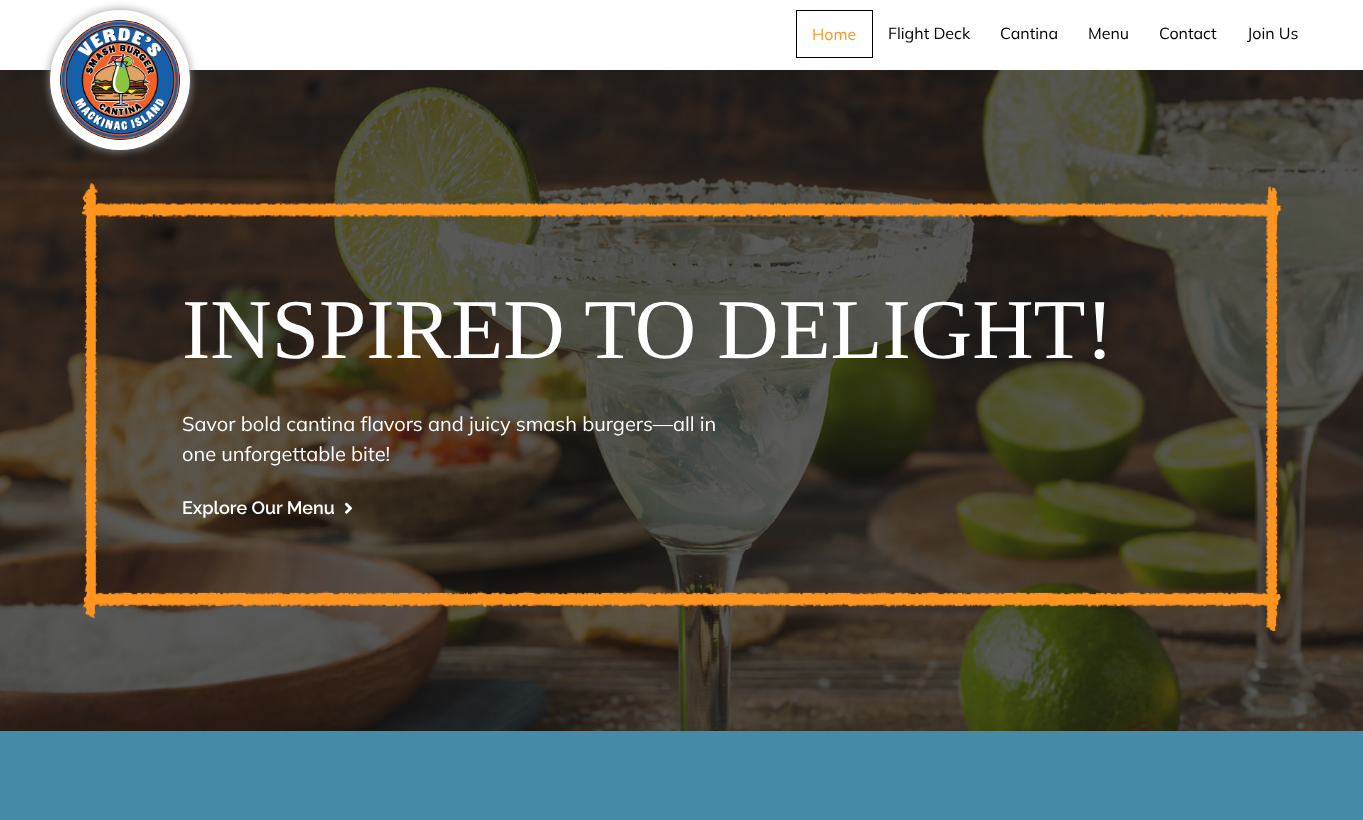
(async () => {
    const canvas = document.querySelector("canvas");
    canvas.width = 1363;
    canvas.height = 820;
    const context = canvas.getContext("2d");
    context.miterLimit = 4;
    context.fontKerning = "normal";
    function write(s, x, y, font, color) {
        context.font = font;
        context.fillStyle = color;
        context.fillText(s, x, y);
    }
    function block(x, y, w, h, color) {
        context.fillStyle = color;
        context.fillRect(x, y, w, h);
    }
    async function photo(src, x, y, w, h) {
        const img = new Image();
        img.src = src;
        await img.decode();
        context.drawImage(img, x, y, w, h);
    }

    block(0, 0, 1363, 820, "rgb(255, 255, 255)");
    await photo("media/2.png", 0, 70, 1363, 661);
    context.fillStyle = "rgb(153, 153, 153)";
    context.filter = "blur(5px)";
    context.beginPath();
    context.roundRect(50, 10, 140, 140, 70);
    context.fill();
    context.filter = "none";
    context.fillStyle = "rgb(255, 255, 255)";
    context.beginPath();
    context.arc(120, 80, 70, 0, Math.PI * 2);
    context.fill();
    await photo("media/1.png", 60, 20, 120, 120);
    context.strokeStyle = "rgb(0, 0, 0)";
    context.strokeRect(796.5, 10.5, 76, 47);
    write("Home", 812, 40, "16px Mulish", "rgb(255, 149, 31)");
    write("Flight Deck", 888, 39, "16px Mulish", "rgb(0, 0, 0)");
    write("Cantina", 1000, 39, "16px Mulish", "rgb(0, 0, 0)");
    write("Menu", 1088, 39, "16px Mulish", "rgb(0, 0, 0)");
    write("Contact", 1159, 39, "16px Mulish", "rgb(0, 0, 0)");
    write("Join Us", 1247, 39, "16px Mulish", "rgb(0, 0, 0)");
    await photo("media/3.png", 82, 183, 1200, 448);
    write("INSPIRED TO DELIGHT!", 182, 358, "85px Liberation Serif", "rgb(255, 255, 255)");
    write("Savor bold cantina flavors and juicy smash burgers—all in", 182, 431, "20px Mulish", "rgb(255, 255, 255)");
    write("one unforgettable bite!", 182, 461, "20px Mulish", "rgb(255, 255, 255)");
    write("Explore Our Menu", 182, 514, "600 18px Raleway", "rgb(255, 255, 255)");
    await photo("media/4.png", 344, 502, 9, 12);
    block(0, 731, 1363, 89, "rgb(69, 138, 167)");
})();
